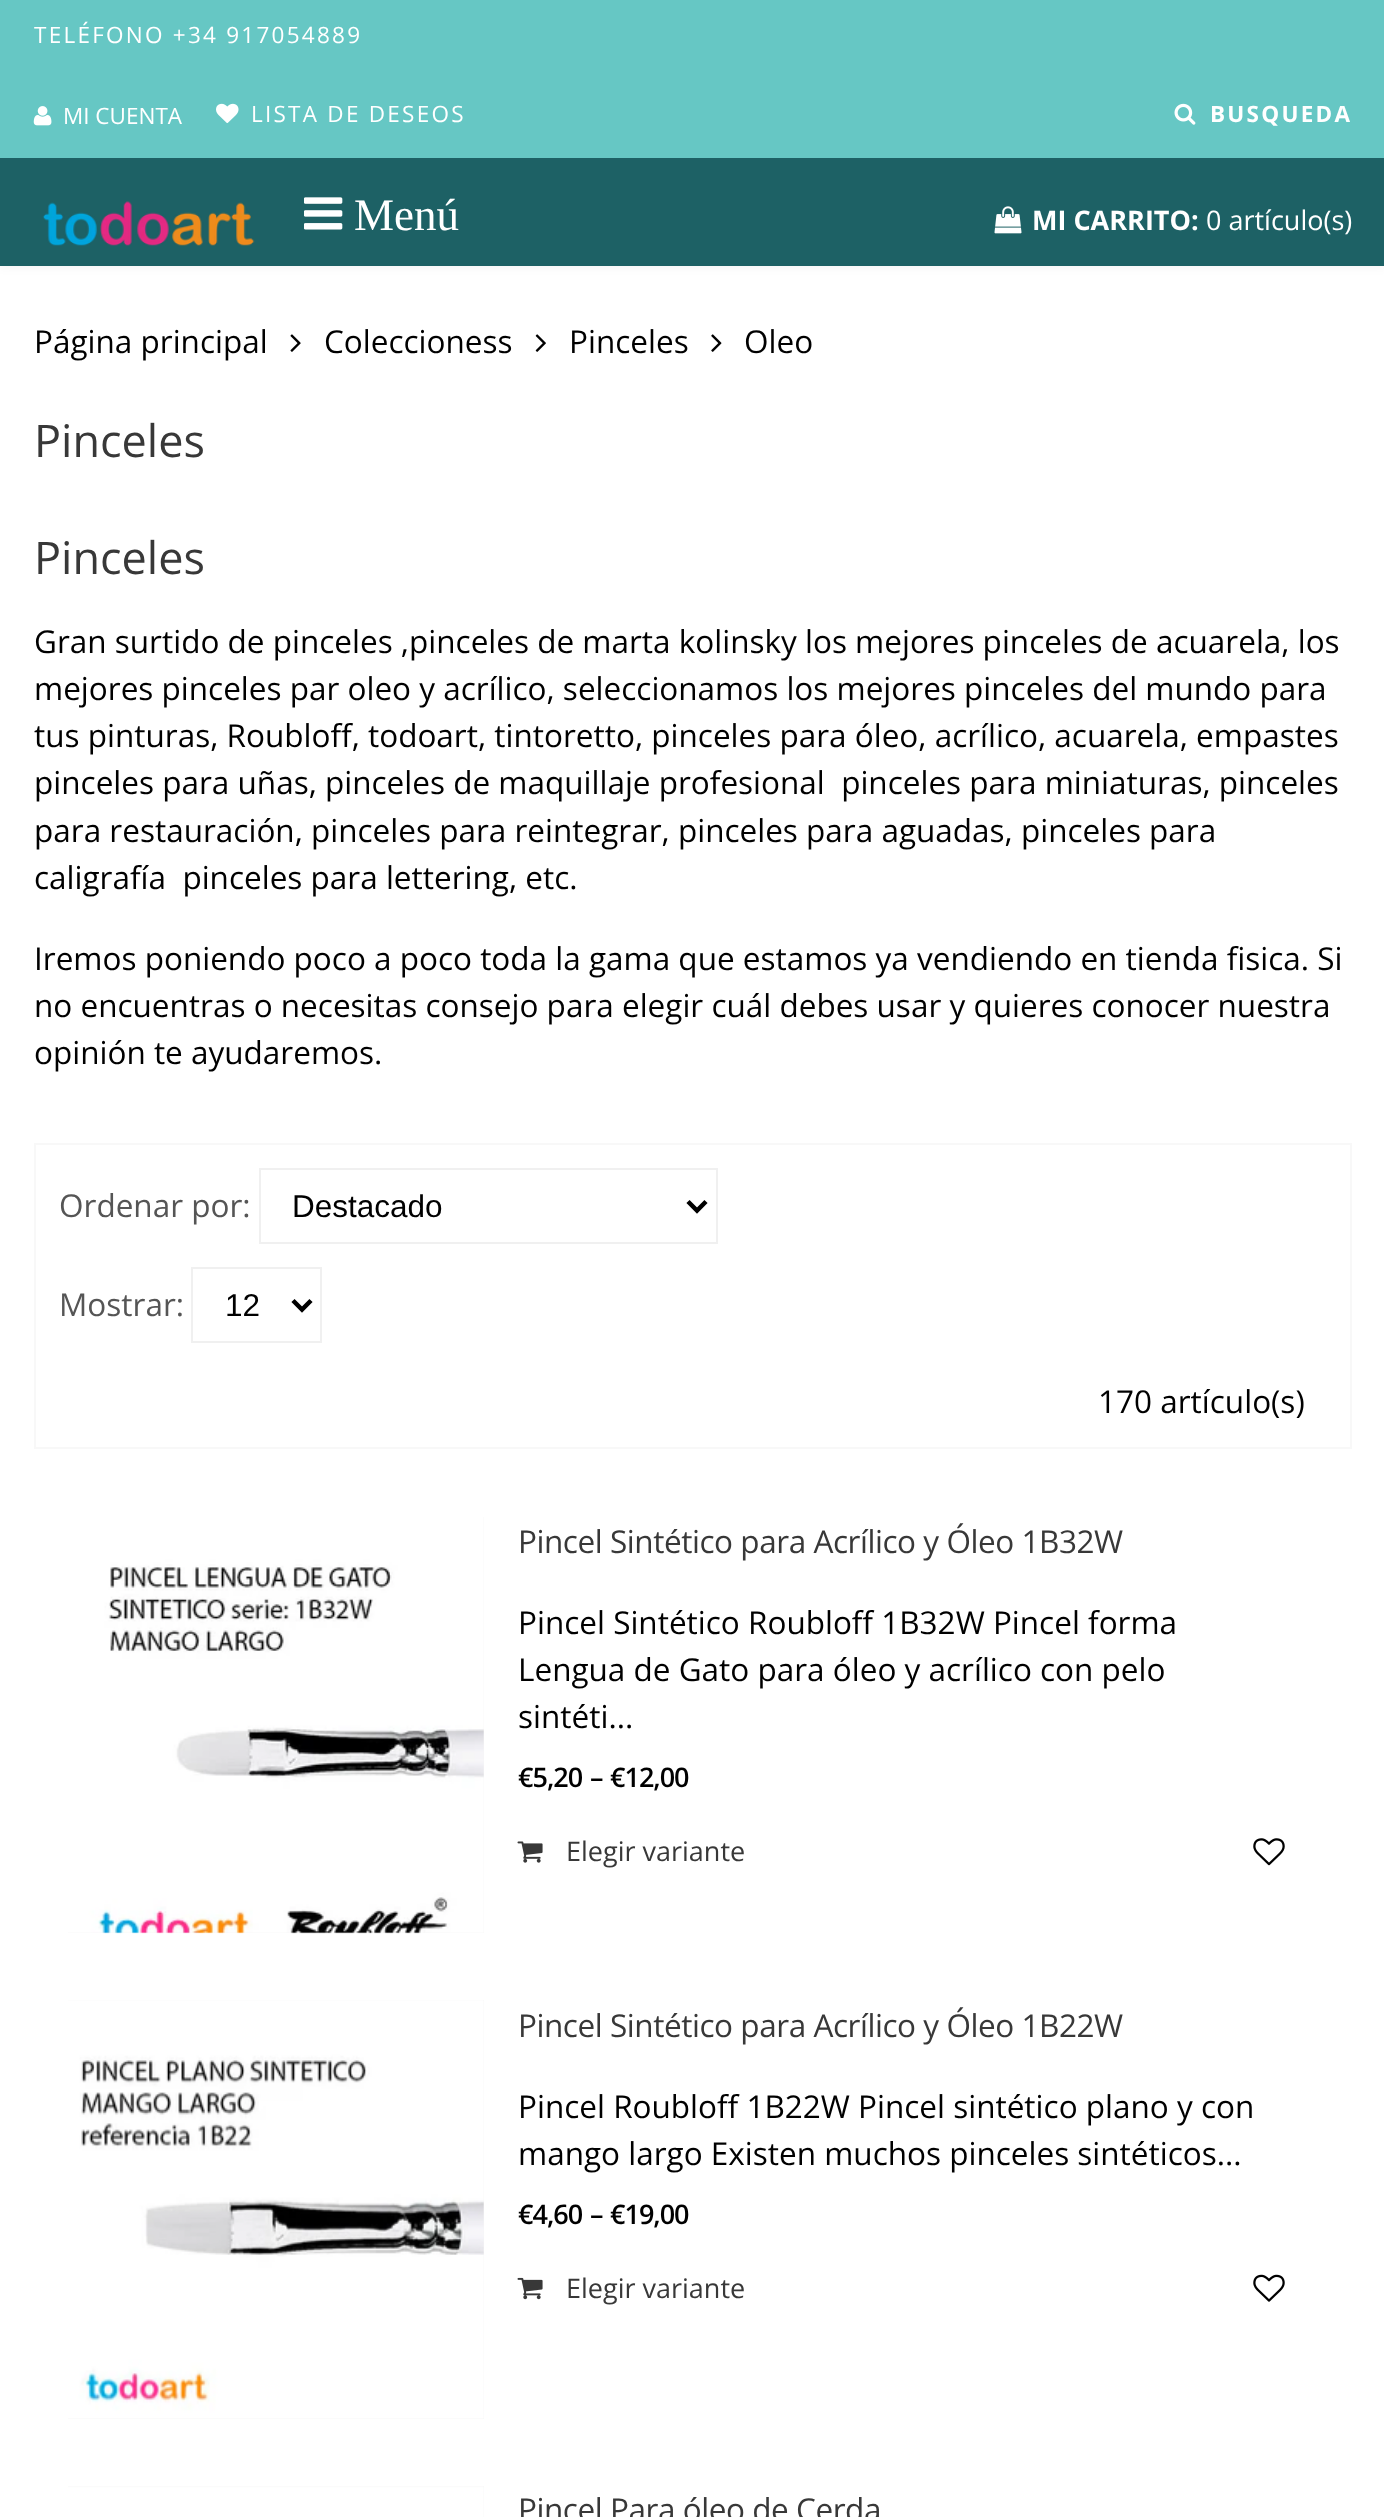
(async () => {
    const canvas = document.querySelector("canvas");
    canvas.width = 1384;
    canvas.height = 2517;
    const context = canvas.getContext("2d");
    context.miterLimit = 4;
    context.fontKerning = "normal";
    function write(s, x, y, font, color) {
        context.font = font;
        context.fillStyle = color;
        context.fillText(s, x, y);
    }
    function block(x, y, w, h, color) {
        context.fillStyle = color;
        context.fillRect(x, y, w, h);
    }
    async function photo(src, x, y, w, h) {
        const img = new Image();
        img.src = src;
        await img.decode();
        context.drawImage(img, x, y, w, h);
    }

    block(0, 0, 1384, 2517, "rgb(255, 255, 255)");
    context.fillStyle = "rgba(0, 0, 0, 0.05)";
    context.filter = "blur(5.5px)";
    context.beginPath();
    context.rect(0, 0, 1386, 266);
    context.fill();
    context.filter = "none";
    block(0, 0, 1384, 158, "rgb(102, 199, 196)");
    context.letterSpacing = "2.25px";
    write("TELÉFONO +34 917054889", 34, 43, "22.5px Open Sans", "rgb(255, 255, 255)");
    await photo("media/1.png", 33, 106, 19, 20);
    context.letterSpacing = "0px";
    write("MI CUENTA", 63, 124, "22.5px Open Sans", "rgb(255, 255, 255)");
    await photo("media/2.png", 216, 103, 23, 21);
    context.letterSpacing = "2.25px";
    write("LISTA DE DESEOS", 251, 122, "22.5px Open Sans", "rgb(255, 255, 255)");
    await photo("media/3.png", 1174, 103, 22, 22);
    write("BUSQUEDA", 1210, 122, "bold 22.5px Open Sans", "rgb(255, 255, 255)");
    block(0, 158, 1384, 108, "rgb(29, 97, 101)");
    await photo("media/4.png", 42, 201, 213, 45);
    await photo("media/5.png", 304, 197, 39, 33);
    context.letterSpacing = "0px";
    write("Menú", 354, 230, "45px Liberation Serif", "rgb(255, 255, 255)");
    await photo("media/6.png", 994, 206, 28, 28);
    write("MI CARRITO:", 1032, 230, "bold 27px Open Sans", "rgb(255, 255, 255)");
    write("0 artículo(s)", 1206, 230, "27px Open Sans", "rgb(255, 255, 255)");
    write("Página principal", 34, 353, "31.5px Open Sans", "rgb(0, 0, 0)");
    await photo("media/7.png", 290, 334, 11, 18);
    write("Coleccioness", 324, 353, "31.5px Open Sans", "rgb(0, 0, 0)");
    await photo("media/8.png", 535, 334, 11, 18);
    write("Pinceles", 569, 353, "31.5px Open Sans", "rgb(0, 0, 0)");
    await photo("media/9.png", 711, 334, 11, 18);
    write("Oleo", 744, 353, "31.5px Open Sans", "rgb(0, 0, 0)");
    write("Pinceles", 34, 457, "45px Open Sans", "rgb(56, 56, 56)");
    write("Pinceles", 34, 574, "45px Open Sans", "rgb(56, 56, 56)");
    write("Gran surtido de pinceles ,pinceles de marta kolinsky los mejores pinceles de acuarela, los", 34, 653, "31.5px Open Sans", "rgb(0, 0, 0)");
    write("mejores pinceles par oleo y acrílico, seleccionamos los mejores pinceles del mundo para", 34, 700, "31.5px Open Sans", "rgb(0, 0, 0)");
    write("tus pinturas, Roubloff, todoart, tintoretto, pinceles para óleo, acrílico, acuarela, empastes", 34, 747, "31.5px Open Sans", "rgb(0, 0, 0)");
    write("pinceles para uñas, pinceles de maquillaje profesional  pinceles para miniaturas, pinceles", 34, 794, "31.5px Open Sans", "rgb(0, 0, 0)");
    write("para restauración, pinceles para reintegrar, pinceles para aguadas, pinceles para", 34, 842, "31.5px Open Sans", "rgb(0, 0, 0)");
    write("caligrafía  pinceles para lettering, etc.", 34, 889, "31.5px Open Sans", "rgb(0, 0, 0)");
    write("Iremos poniendo poco a poco toda la gama que estamos ya vendiendo en tienda fisica. Si", 34, 970, "31.5px Open Sans", "rgb(0, 0, 0)");
    write("no encuentras o necesitas consejo para elegir cuál debes usar y quieres conocer nuestra", 34, 1017, "31.5px Open Sans", "rgb(0, 0, 0)");
    write("opinión te ayudaremos.", 34, 1064, "31.5px Open Sans", "rgb(0, 0, 0)");
    context.strokeStyle = "rgb(248, 248, 248)";
    context.lineWidth = 2;
    context.strokeRect(35, 1144, 1316, 304);
    write("Ordenar por:", 59, 1217, "31.5px Open Sans", "rgb(85, 85, 85)");
    context.strokeStyle = "rgb(240, 240, 240)";
    context.strokeRect(260, 1169, 457, 74);
    context.beginPath();
    context.moveTo(688, 1201.5);
    context.lineTo(697, 1210.5);
    context.lineTo(706, 1201.5);
    context.strokeStyle = "rgb(0, 0, 0)";
    context.lineWidth = 4.5;
    context.stroke();
    write("Destacado", 292, 1217, "31.5px Liberation Sans", "rgb(0, 0, 0)");
    write("Mostrar:", 59, 1316, "31.5px Open Sans", "rgb(85, 85, 85)");
    context.strokeStyle = "rgb(240, 240, 240)";
    context.lineWidth = 2;
    context.strokeRect(192, 1268, 129, 74);
    context.beginPath();
    context.moveTo(293, 1300.5);
    context.lineTo(302, 1309.5);
    context.lineTo(311, 1300.5);
    context.strokeStyle = "rgb(0, 0, 0)";
    context.lineWidth = 4.5;
    context.stroke();
    write("12", 225, 1316, "31.5px Liberation Sans", "rgb(0, 0, 0)");
    write("170 artículo(s)", 1098, 1413, "31.5px Open Sans", "rgb(0, 0, 0)");
    block(68, 1517, 416, 416, "rgb(245, 245, 245)");
    await photo("media/10.png", 68, 1517, 416, 417);
    context.letterSpacing = "-0.45px";
    write("Pincel Sintético para Acrílico y Óleo 1B32W", 518, 1553, "31.5px Open Sans", "rgb(56, 56, 56)");
    context.letterSpacing = "0px";
    write("Pincel Sintético Roubloff 1B32W Pincel forma", 518, 1634, "31.5px Open Sans", "rgb(0, 0, 0)");
    write("Lengua de Gato para óleo y acrílico con pelo", 518, 1681, "31.5px Open Sans", "rgb(0, 0, 0)");
    write("sintéti...", 518, 1728, "31.5px Open Sans", "rgb(0, 0, 0)");
    context.letterSpacing = "-1px";
    write("€5,20", 518, 1787, "600 27px Open Sans", "rgb(0, 0, 0)");
    write("–", 590, 1787, "600 27px Open Sans", "rgb(0, 0, 0)");
    write("€12,00", 610, 1787, "600 27px Open Sans", "rgb(0, 0, 0)");
    await photo("media/11.png", 517, 1841, 26, 22);
    context.letterSpacing = "0px";
    write("Elegir variante", 566, 1861, "27px Open Sans", "rgb(56, 56, 56)");
    await photo("media/12.png", 1253, 1838, 32, 28);
    block(68, 2000, 416, 419, "rgb(245, 245, 245)");
    await photo("media/13.png", 68, 2000, 416, 419);
    context.letterSpacing = "-0.45px";
    write("Pincel Sintético para Acrílico y Óleo 1B22W", 518, 2037, "31.5px Open Sans", "rgb(56, 56, 56)");
    context.letterSpacing = "0px";
    write("Pincel Roubloff 1B22W Pincel sintético plano y con", 518, 2118, "31.5px Open Sans", "rgb(0, 0, 0)");
    write("mango largo Existen muchos pinceles sintéticos...", 518, 2165, "31.5px Open Sans", "rgb(0, 0, 0)");
    context.letterSpacing = "-1px";
    write("€4,60", 518, 2224, "600 27px Open Sans", "rgb(0, 0, 0)");
    write("–", 590, 2224, "600 27px Open Sans", "rgb(0, 0, 0)");
    write("€19,00", 610, 2224, "600 27px Open Sans", "rgb(0, 0, 0)");
    await photo("media/14.png", 517, 2277, 26, 23);
    context.letterSpacing = "0px";
    write("Elegir variante", 566, 2298, "27px Open Sans", "rgb(56, 56, 56)");
    await photo("media/15.png", 1253, 2274, 32, 28);
    block(68, 2486, 416, 31, "rgb(245, 245, 245)");
    await photo("media/16.png", 68, 2486, 416, 31);
    context.letterSpacing = "-0.45px";
    write("Pincel Para óleo de Cerda", 518, 2521, "31.5px Open Sans", "rgb(56, 56, 56)");
})();
